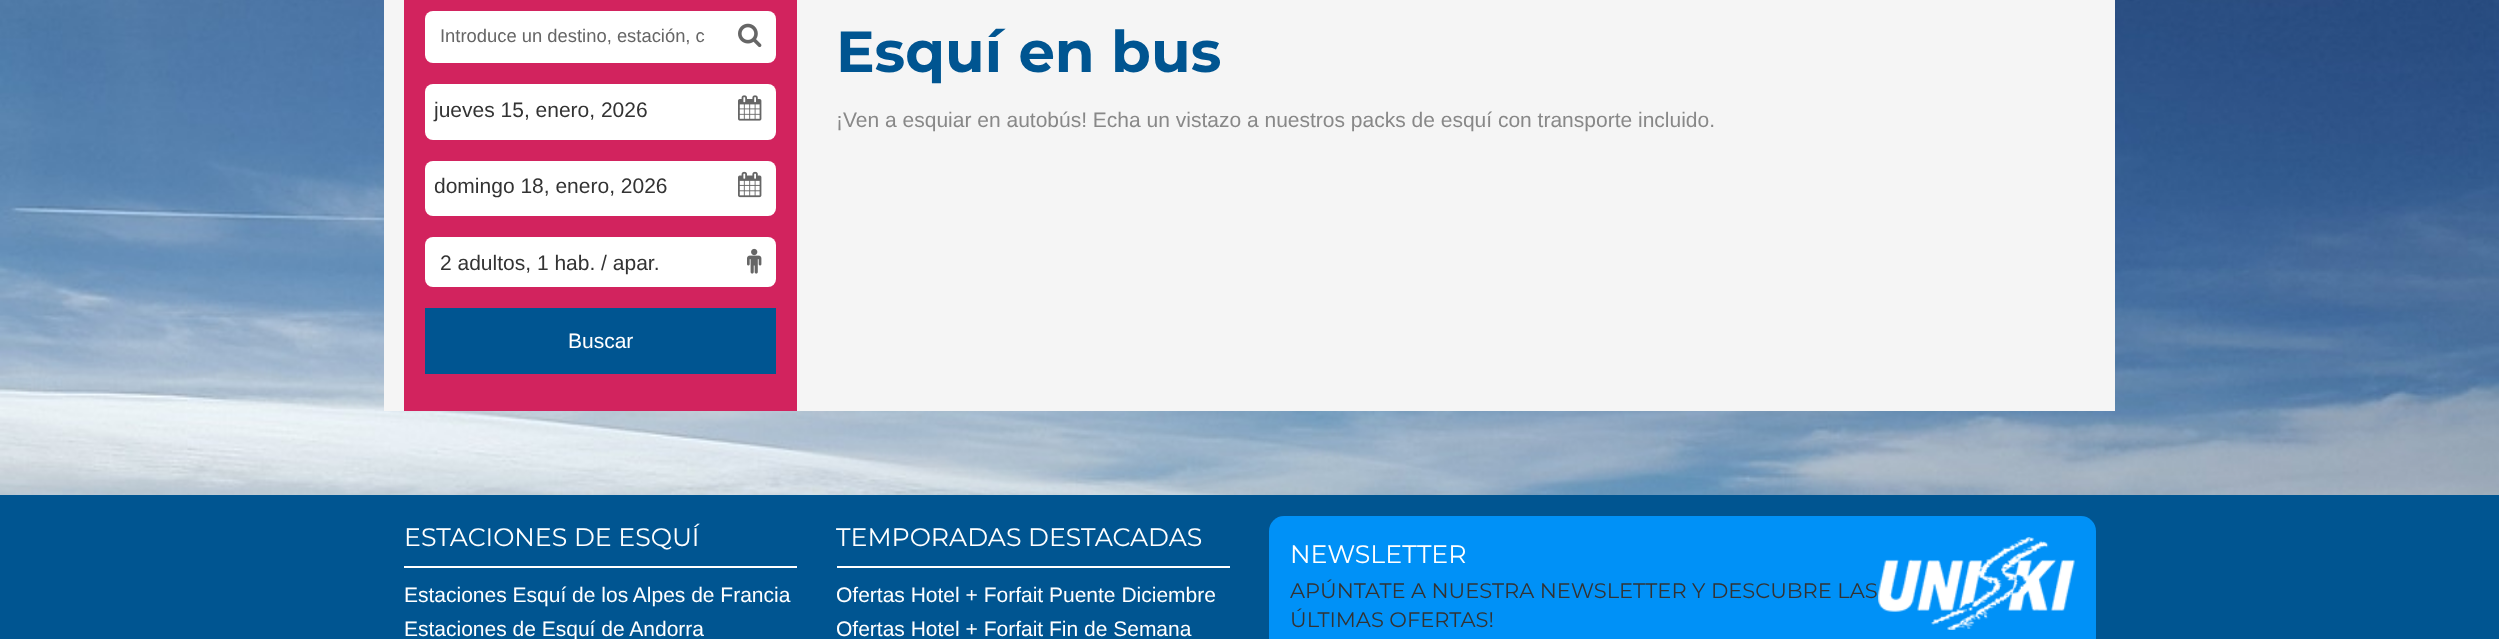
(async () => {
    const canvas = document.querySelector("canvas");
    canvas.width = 2499;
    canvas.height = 639;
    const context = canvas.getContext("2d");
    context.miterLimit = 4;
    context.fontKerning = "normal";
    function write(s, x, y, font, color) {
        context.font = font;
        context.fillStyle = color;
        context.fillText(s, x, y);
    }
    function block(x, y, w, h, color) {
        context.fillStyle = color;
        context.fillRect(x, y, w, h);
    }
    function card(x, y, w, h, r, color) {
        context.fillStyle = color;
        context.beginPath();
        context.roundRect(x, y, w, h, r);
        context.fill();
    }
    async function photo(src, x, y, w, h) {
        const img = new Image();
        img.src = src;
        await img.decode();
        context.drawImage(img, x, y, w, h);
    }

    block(0, 0, 2499, 639, "rgb(255, 255, 255)");
    await photo("media/1.png", 0, 0, 2499, 495);
    block(384, 0, 1731, 411, "rgb(245, 245, 245)");
    block(404, 0, 393, 411, "rgb(210, 35, 94)");
    card(425, 11, 351, 52, 8, "rgb(255, 255, 255)");
    write("Introduce un destino, estación, c", 440, 42, "18.4px Liberation Sans", "rgb(102, 102, 102)");
    await photo("media/2.png", 738, 23, 24, 25);
    card(425, 84, 351, 56, 8, "rgb(255, 255, 255)");
    write("jueves 15, enero, 2026", 434, 117, "21px Liberation Sans", "rgb(51, 51, 51)");
    await photo("media/3.png", 738, 95, 24, 26);
    card(425, 161, 351, 55, 8, "rgb(255, 255, 255)");
    write("domingo 18, enero, 2026", 434, 193, "21px Liberation Sans", "rgb(51, 51, 51)");
    await photo("media/4.png", 738, 171, 24, 27);
    card(425, 237, 351, 50, 8, "rgb(255, 255, 255)");
    write("2 adultos, 1 hab. / apar.", 440, 270, "21px Liberation Sans", "rgb(51, 51, 51)");
    await photo("media/5.png", 747, 248, 15, 26);
    block(425, 308, 351, 66, "rgb(0, 85, 145)");
    write("Buscar", 568, 348, "21px Liberation Sans", "rgb(255, 255, 255)");
    write("Esquí en bus", 836, 72, "bold 57.75px Montserrat", "rgb(0, 85, 145)");
    write("¡Ven a esquiar en autobús! Echa un vistazo a nuestros packs de esquí con transporte incluido.", 836, 127, "21px Liberation Sans", "rgb(136, 136, 136)");
    block(0, 495, 2499, 144, "rgb(0, 85, 145)");
    block(404, 566, 393, 2, "rgb(255, 255, 255)");
    write("ESTACIONES DE ESQUÍ", 404, 546, "25.25px Montserrat", "rgb(255, 255, 255)");
    write("Estaciones Esquí de los Alpes de Francia", 404, 602, "21px Liberation Sans", "rgb(255, 255, 255)");
    write("Estaciones de Esquí de Andorra", 404, 636, "21px Liberation Sans", "rgb(255, 255, 255)");
    block(837, 566, 393, 2, "rgb(255, 255, 255)");
    write("TEMPORADAS DESTACADAS", 836, 546, "25.25px Montserrat", "rgb(255, 255, 255)");
    write("Ofertas Hotel + Forfait Puente Diciembre", 836, 602, "21px Liberation Sans", "rgb(255, 255, 255)");
    write("Ofertas Hotel + Forfait Fin de Semana", 836, 636, "21px Liberation Sans", "rgb(255, 255, 255)");
    card(1269, 516, 827, 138, 15, "rgb(0, 145, 247)");
    write("NEWSLETTER", 1290, 563, "25.25px Montserrat", "rgb(255, 255, 255)");
    write("APÚNTATE A NUESTRA NEWSLETTER Y DESCUBRE LAS", 1290, 598, "21px Montserrat", "rgb(51, 51, 51)");
    write("ÚLTIMAS OFERTAS!", 1290, 627, "21px Montserrat", "rgb(51, 51, 51)");
    await photo("media/6.png", 1878, 537, 197, 93);
})();
